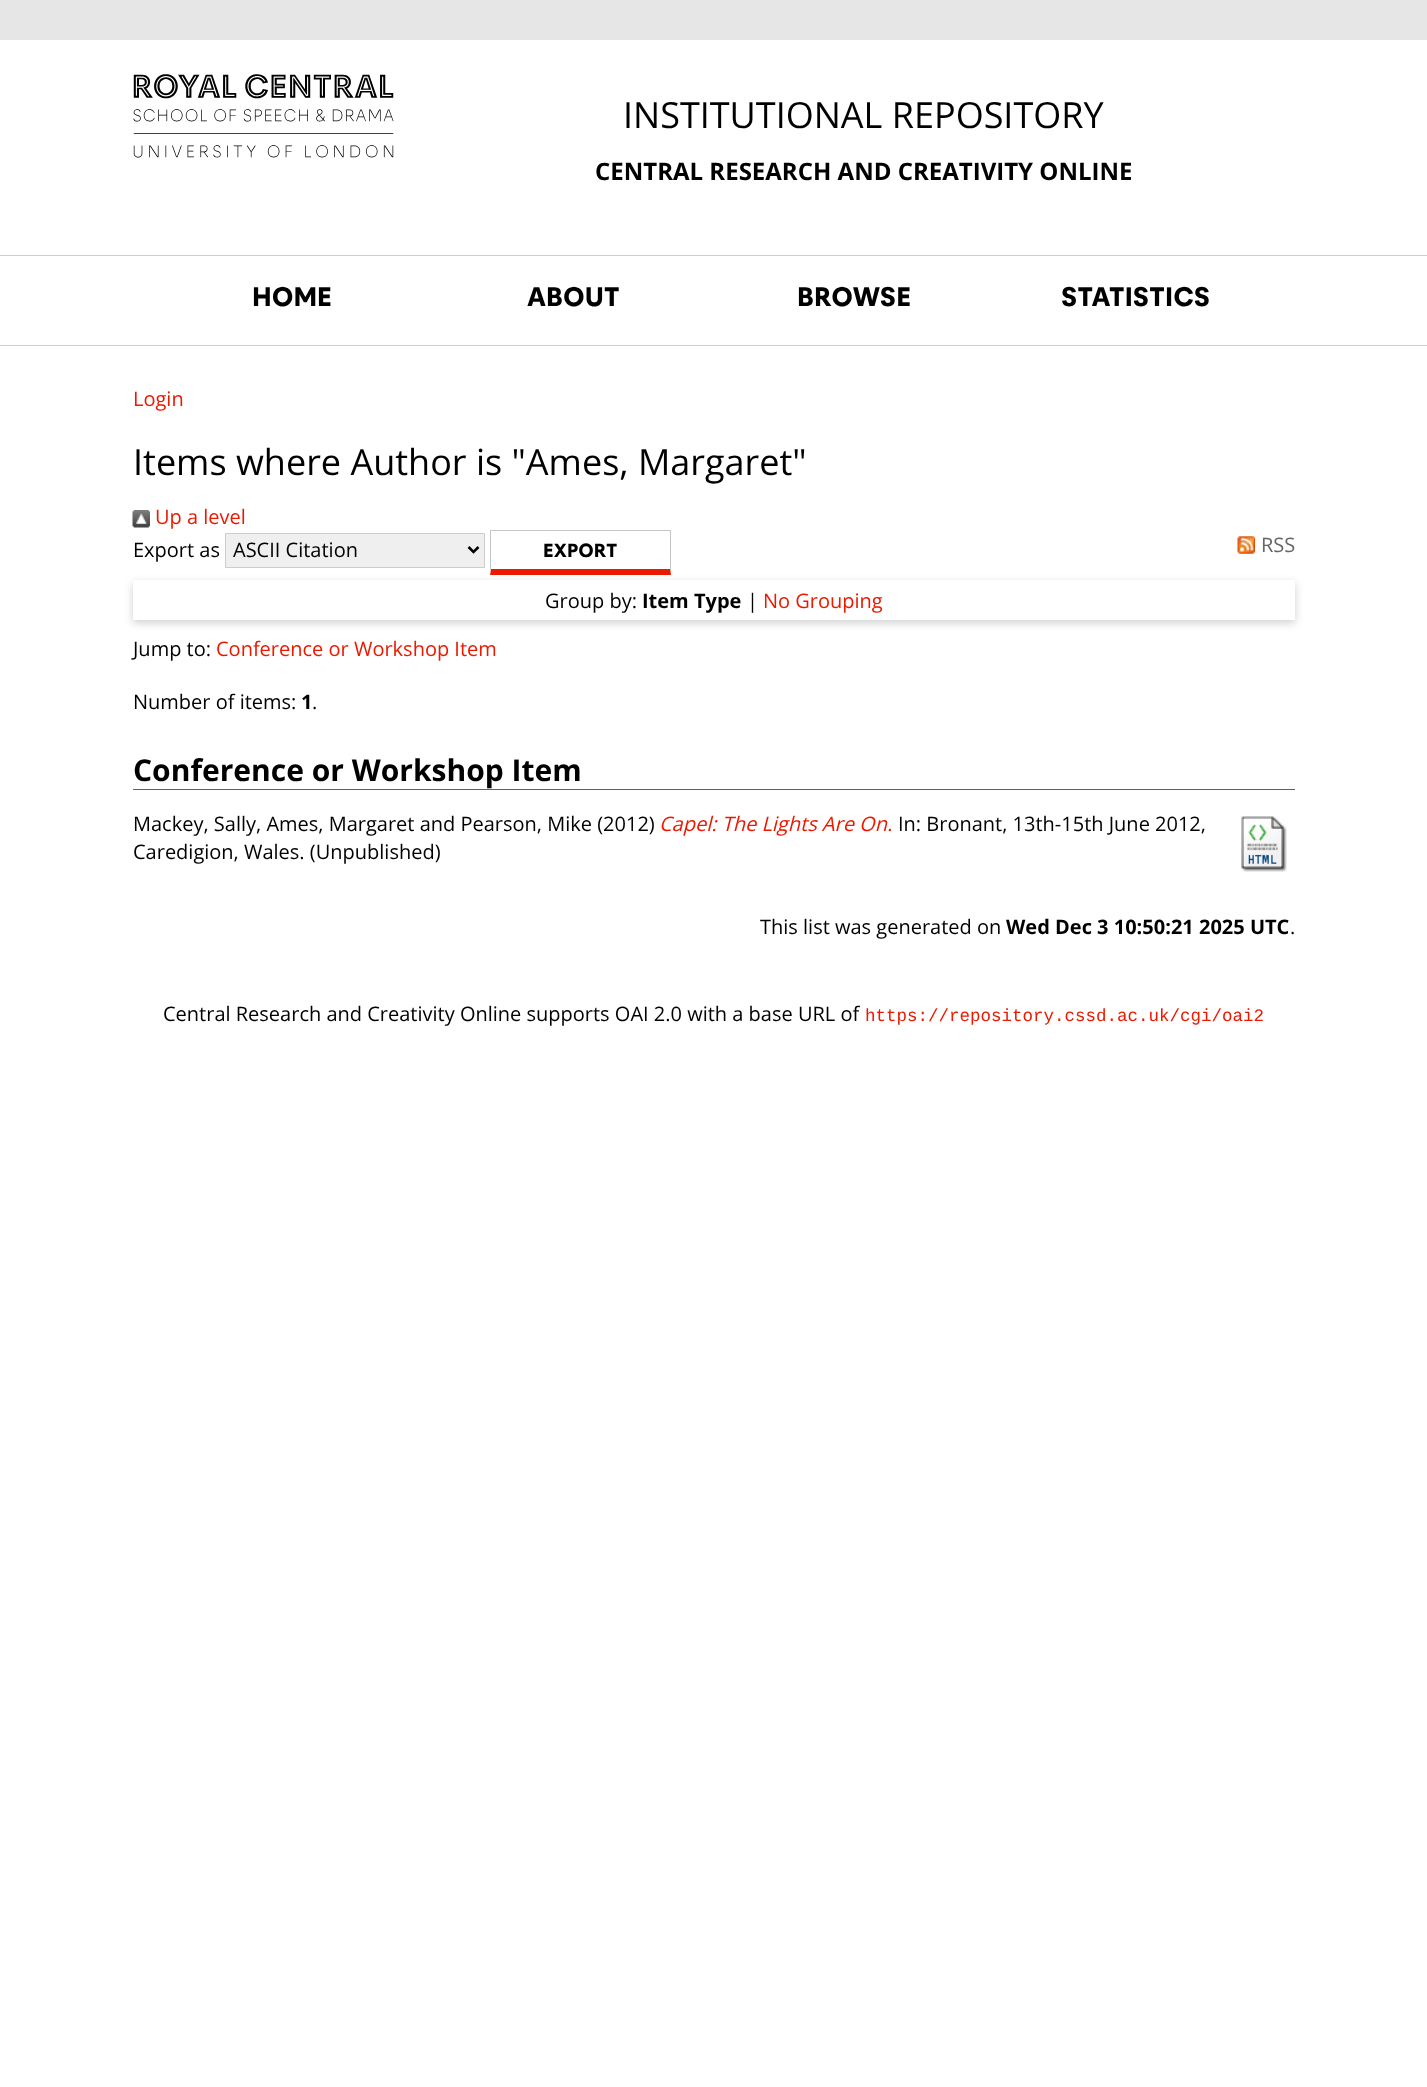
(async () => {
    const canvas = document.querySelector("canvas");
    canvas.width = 1427;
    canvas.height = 2087;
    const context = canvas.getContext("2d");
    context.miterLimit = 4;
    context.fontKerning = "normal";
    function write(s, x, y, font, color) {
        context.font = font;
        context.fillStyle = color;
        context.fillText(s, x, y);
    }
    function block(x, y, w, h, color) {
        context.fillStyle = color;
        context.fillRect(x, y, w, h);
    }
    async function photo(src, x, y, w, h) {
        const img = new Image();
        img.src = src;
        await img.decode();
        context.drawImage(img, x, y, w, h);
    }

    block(0, 0, 1427, 2087, "rgb(255, 255, 255)");
    block(0, 0, 1427, 40, "rgb(230, 230, 230)");
    await photo("media/1.png", 133, 74, 261, 84);
    write("INSTITUTIONAL REPOSITORY", 623, 128, "36px Open Sans", "rgb(0, 0, 0)");
    write("CENTRAL RESEARCH AND CREATIVITY ONLINE", 595, 180, "bold 24px Open Sans", "rgb(0, 0, 0)");
    block(0, 255, 1427, 1, "rgb(206, 206, 206)");
    block(0, 345, 1427, 1, "rgb(206, 206, 206)");
    write("HOME", 252, 306, "28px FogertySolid", "rgb(0, 0, 0)");
    write("ABOUT", 527, 306, "28px FogertySolid", "rgb(0, 0, 0)");
    write("BROWSE", 797, 306, "28px FogertySolid", "rgb(0, 0, 0)");
    write("STATISTICS", 1061, 306, "28px FogertySolid", "rgb(0, 0, 0)");
    write("Login", 133, 406, "20px Open Sans", "rgb(234, 25, 0)");
    write("Items where Author is \"Ames, Margaret\"", 133, 475, "36px Open Sans", "rgb(0, 0, 0)");
    await photo("media/2.png", 132, 510, 18, 18);
    write("Up a level", 155, 524, "20px Open Sans", "rgb(234, 25, 0)");
    write("Export as", 133, 557, "20px Open Sans", "rgb(0, 0, 0)");
    context.fillStyle = "rgb(239, 239, 239)";
    context.beginPath();
    context.rect(225.5, 533.5, 259, 34);
    context.fill();
    context.strokeStyle = "rgb(204, 204, 204)";
    context.stroke();
    context.beginPath();
    context.moveTo(468.5, 547);
    context.lineTo(473.5, 552);
    context.lineTo(478.5, 547);
    context.strokeStyle = "rgb(0, 0, 0)";
    context.lineWidth = 2.5;
    context.stroke();
    write("ASCII Citation", 233, 557, "20px Open Sans", "rgb(0, 0, 0)");
    block(490, 530, 181, 1, "rgb(198, 198, 198)");
    context.save();
    context.beginPath();
    context.moveTo(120, 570);
    context.lineTo(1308, 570);
    context.lineTo(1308, 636);
    context.lineTo(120, 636);
    context.closePath();
    context.moveTo(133, 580);
    context.lineTo(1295, 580);
    context.lineTo(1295, 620);
    context.lineTo(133, 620);
    context.closePath();
    context.clip("evenodd");
    context.fillStyle = "rgba(100, 100, 100, 0.3)";
    context.filter = "blur(4px)";
    context.beginPath();
    context.rect(133, 583, 1162, 40);
    context.fill();
    context.filter = "none";
    context.restore();
    context.beginPath();
    context.moveTo(671, 530);
    context.lineTo(671, 575);
    context.lineTo(670, 569);
    context.lineTo(670, 531);
    context.closePath();
    context.fill();
    context.fillStyle = "rgb(234, 25, 0)";
    context.beginPath();
    context.moveTo(671, 575);
    context.lineTo(490, 575);
    context.lineTo(491, 569);
    context.lineTo(670, 569);
    context.closePath();
    context.fill();
    context.fillStyle = "rgb(198, 198, 198)";
    context.beginPath();
    context.moveTo(490, 575);
    context.lineTo(490, 530);
    context.lineTo(491, 531);
    context.lineTo(491, 569);
    context.closePath();
    context.fill();
    write("Export", 543, 557, "20px FogertySolid", "rgb(0, 0, 0)");
    await photo("media/3.png", 1237, 536, 18, 18);
    write("RSS", 1261, 552, "20px Open Sans", "rgb(102, 102, 102)");
    write("Group by:", 545, 608, "20px Open Sans", "rgb(0, 0, 0)");
    write("Item Type", 642, 608, "bold 20px Open Sans", "rgb(0, 0, 0)");
    write("|", 747, 608, "20px Open Sans", "rgb(0, 0, 0)");
    write("No Grouping", 763, 608, "20px Open Sans", "rgb(234, 25, 0)");
    write("Jump to:", 133, 656, "20px Open Sans", "rgb(0, 0, 0)");
    write("Conference or Workshop Item", 216, 656, "20px Open Sans", "rgb(234, 25, 0)");
    write("Number of items:", 133, 709, "20px Open Sans", "rgb(0, 0, 0)");
    write("1", 301, 709, "bold 20px Open Sans", "rgb(0, 0, 0)");
    write(".", 312, 709, "20px Open Sans", "rgb(0, 0, 0)");
    block(133, 789, 1162, 1, "rgb(96, 96, 96)");
    write("Conference or Workshop Item", 133, 781, "bold 30px Open Sans", "rgb(0, 0, 0)");
    write("Mackey, Sally, Ames, Margaret and Pearson, Mike (2012)", 133, 831, "20px Open Sans", "rgb(0, 0, 0)");
    write("Capel: The Lights Are On.", 659, 831, "italic 20px Open Sans", "rgb(234, 25, 0)");
    write("In: Bronant, 13th-15th June 2012,", 898, 831, "20px Open Sans", "rgb(0, 0, 0)");
    await photo("media/4.png", 1241, 816, 46, 56);
    write("Caredigion, Wales. (Unpublished)", 133, 859, "20px Open Sans", "rgb(0, 0, 0)");
    write("This list was generated on", 760, 934, "20px Open Sans", "rgb(0, 0, 0)");
    write("Wed Dec 3 10:50:21 2025 UTC", 1006, 934, "bold 20px Open Sans", "rgb(0, 0, 0)");
    write(".", 1290, 934, "20px Open Sans", "rgb(0, 0, 0)");
    write("Central Research and Creativity Online supports OAI 2.0 with a base URL of", 163, 1021, "20px Open Sans", "rgb(0, 0, 0)");
    write("https://repository.cssd.ac.uk/cgi/oai2", 865, 1021, "17.5px Liberation Mono", "rgb(234, 25, 0)");
})();
